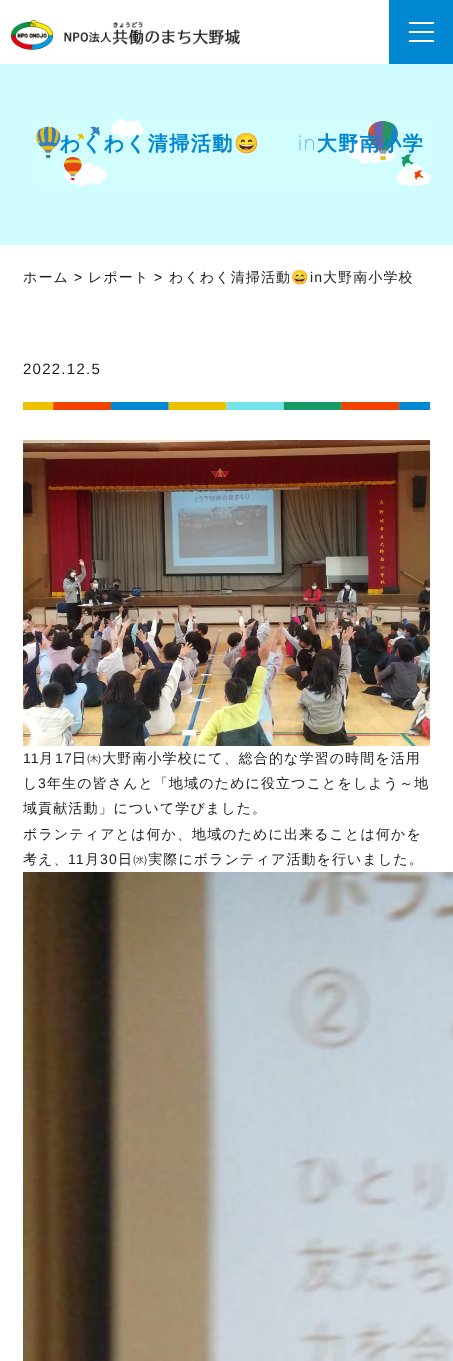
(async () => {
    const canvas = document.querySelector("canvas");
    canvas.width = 453;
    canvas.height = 1361;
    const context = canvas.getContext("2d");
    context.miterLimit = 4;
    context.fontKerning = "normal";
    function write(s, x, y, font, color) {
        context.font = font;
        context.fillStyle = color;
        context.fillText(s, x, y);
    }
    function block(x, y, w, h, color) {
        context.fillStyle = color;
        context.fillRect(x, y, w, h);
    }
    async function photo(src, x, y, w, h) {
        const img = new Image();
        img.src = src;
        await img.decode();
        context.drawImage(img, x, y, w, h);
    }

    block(0, 0, 453, 1361, "rgb(255, 255, 255)");
    await photo("media/1.png", 10, 20, 230, 30);
    block(389, 0, 64, 64, "rgb(2, 135, 210)");
    block(409, 22, 25, 2, "rgb(255, 255, 255)");
    block(409, 31, 25, 2, "rgb(255, 255, 255)");
    block(409, 40, 25, 2, "rgb(255, 255, 255)");
    block(0, 64, 453, 181, "rgb(209, 252, 255)");
    await photo("media/2.png", 36, 119, 395, 67);
    context.letterSpacing = "1.5px";
    write("わくわく清掃活動😄", 60, 150, "bold 20px Noto Color Emoji", "rgb(2, 135, 210)");
    write("in", 298, 150, "100 20px Noto Sans", "rgb(2, 135, 210)");
    write("大野南小学", 317, 150, "bold 20px Noto Color Emoji", "rgb(2, 135, 210)");
    context.letterSpacing = "1.1px";
    write("ホーム", 23, 282, "500 14px WenQuanYi Zen Hei", "rgb(27, 27, 27)");
    write(">", 74, 282, "14px Liberation Sans", "rgb(0, 0, 0)");
    write("レポート", 88, 282, "500 14px WenQuanYi Zen Hei", "rgb(27, 27, 27)");
    write(">", 154, 282, "14px Liberation Sans", "rgb(0, 0, 0)");
    write("わくわく清掃活動", 169, 282, "500 14px WenQuanYi Zen Hei", "rgb(27, 27, 27)");
    write("😄", 291, 282, "14px Noto Color Emoji", "rgb(27, 27, 27)");
    write("in", 310, 282, "14px Liberation Sans", "rgb(27, 27, 27)");
    write("大野南小学校", 323, 282, "500 14px WenQuanYi Zen Hei", "rgb(27, 27, 27)");
    context.letterSpacing = "1.25px";
    write("2022.12.5", 23, 374, "15px Liberation Sans", "rgb(27, 27, 27)");
    await photo("media/3.png", 23, 402, 407, 8);
    await photo("media/4.png", 23, 440, 407, 306);
    context.letterSpacing = "1.1px";
    write("11", 23, 763, "14px Liberation Sans", "rgb(27, 27, 27)");
    write("月", 39, 763, "500 14px WenQuanYi Zen Hei", "rgb(27, 27, 27)");
    write("17", 55, 763, "14px Liberation Sans", "rgb(27, 27, 27)");
    write("日㈭大野南小学校にて、総合的な学習の時間を活用", 72, 763, "500 14px WenQuanYi Zen Hei", "rgb(27, 27, 27)");
    write("し", 23, 788, "500 14px WenQuanYi Zen Hei", "rgb(27, 27, 27)");
    write("3", 38, 788, "14px Liberation Sans", "rgb(27, 27, 27)");
    write("年生の皆さんと「地域のために役立つことをしよう～地", 47, 788, "500 14px WenQuanYi Zen Hei", "rgb(27, 27, 27)");
    write("域貢献活動」について学びました。", 23, 813, "500 14px WenQuanYi Zen Hei", "rgb(27, 27, 27)");
    write("ボランティアとは何か、地域のために出来ることは何かを", 23, 839, "500 14px WenQuanYi Zen Hei", "rgb(27, 27, 27)");
    write("考え、", 23, 864, "500 14px WenQuanYi Zen Hei", "rgb(27, 27, 27)");
    write("11", 68, 864, "14px Liberation Sans", "rgb(27, 27, 27)");
    write("月", 85, 864, "500 14px WenQuanYi Zen Hei", "rgb(27, 27, 27)");
    write("30", 100, 864, "14px Liberation Sans", "rgb(27, 27, 27)");
    write("日㈬実際にボランティア活動を行いました。", 118, 864, "500 14px WenQuanYi Zen Hei", "rgb(27, 27, 27)");
    await photo("media/5.png", 23, 872, 430, 489);
})();
